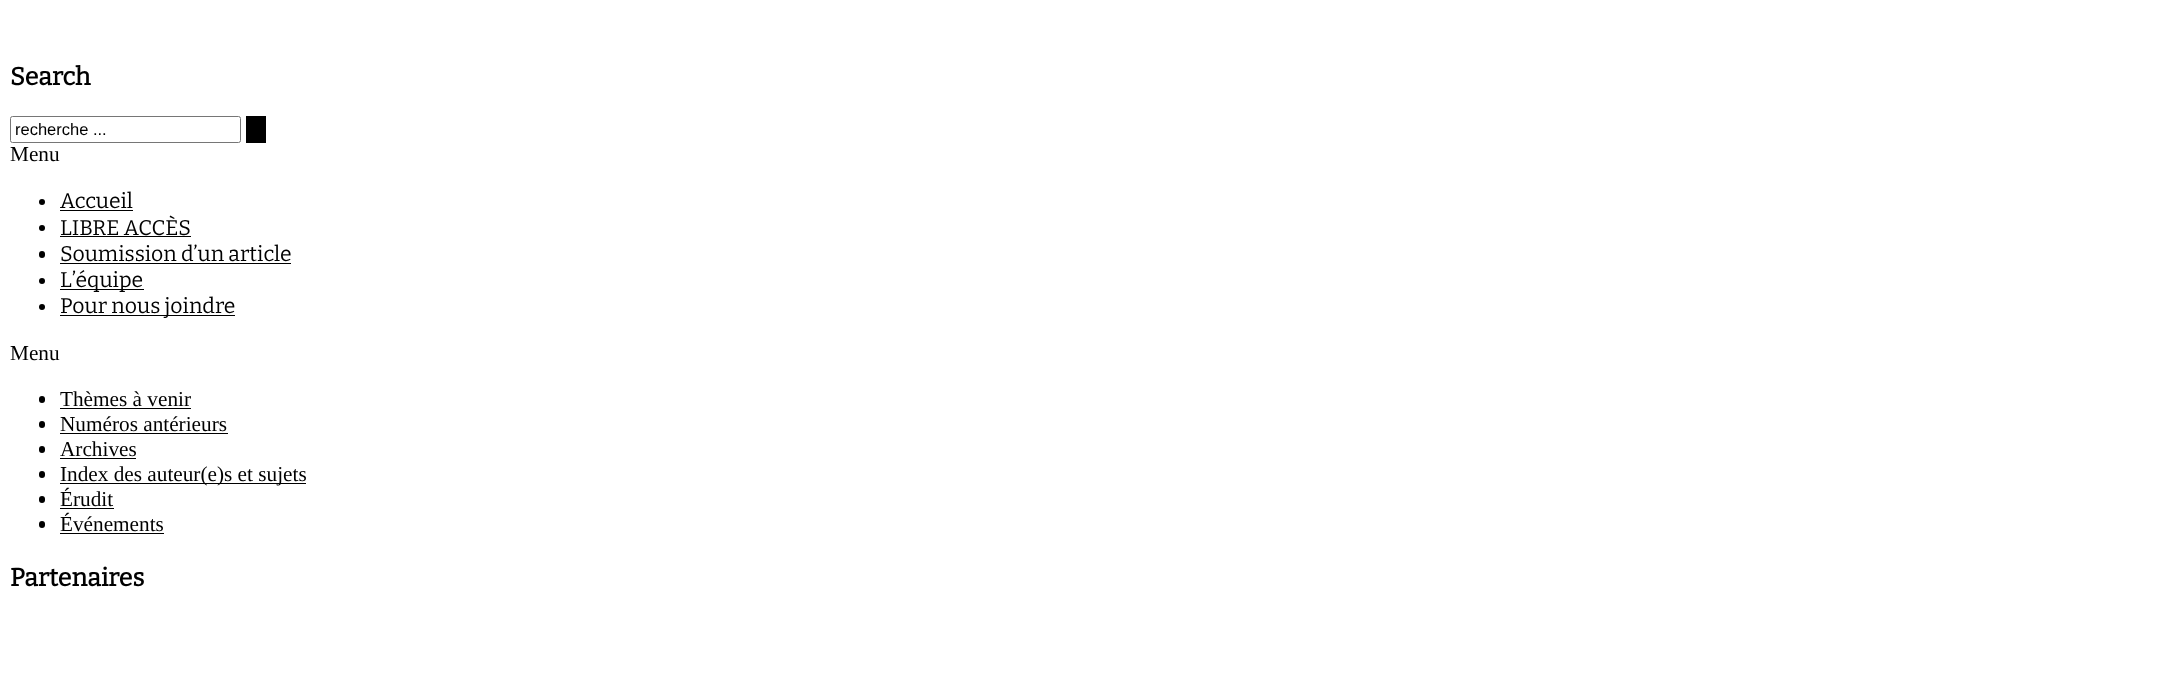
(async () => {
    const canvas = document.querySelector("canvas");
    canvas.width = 2176;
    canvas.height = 678;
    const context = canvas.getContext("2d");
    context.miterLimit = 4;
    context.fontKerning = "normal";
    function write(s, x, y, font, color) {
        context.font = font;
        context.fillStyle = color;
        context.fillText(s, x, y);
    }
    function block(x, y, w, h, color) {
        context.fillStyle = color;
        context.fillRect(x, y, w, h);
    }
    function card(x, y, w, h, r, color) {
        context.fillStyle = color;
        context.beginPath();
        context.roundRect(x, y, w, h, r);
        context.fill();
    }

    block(0, 0, 2176, 678, "rgb(255, 255, 255)");
    write("Search", 10, 85, "bold 25px Bitter", "rgb(0, 0, 0)");
    context.beginPath();
    context.roundRect(10.5, 116.5, 230, 26, 2);
    context.strokeStyle = "rgb(118, 118, 118)";
    context.stroke();
    write("recherche ...", 15, 135, "16.5px Liberation Sans", "rgb(0, 0, 0)");
    block(246, 116, 20, 27, "rgb(0, 0, 0)");
    write("Menu", 10, 161, "21.25px Liberation Serif", "rgb(0, 0, 0)");
    context.beginPath();
    context.arc(42, 202, 3, 0, Math.PI * 2);
    context.fill();
    write("Accueil", 60, 208, "100 21.25px Bitter", "rgb(0, 0, 0)");
    block(60, 210, 73, 1, "rgb(0, 0, 0)");
    context.beginPath();
    context.arc(42, 228, 3, 0, Math.PI * 2);
    context.fill();
    write("LIBRE ACCÈS", 60, 235, "100 21.25px Bitter", "rgb(0, 0, 0)");
    block(60, 236, 131, 1, "rgb(0, 0, 0)");
    card(39, 251, 6, 7, 3, "rgb(0, 0, 0)");
    write("Soumission d’un article", 60, 261, "100 21.25px Bitter", "rgb(0, 0, 0)");
    block(60, 263, 231, 1, "rgb(0, 0, 0)");
    context.beginPath();
    context.arc(42, 281, 3, 0, Math.PI * 2);
    context.fill();
    block(60, 289, 84, 1, "rgb(0, 0, 0)");
    write("L’équipe", 60, 287, "100 21.25px Bitter", "rgb(0, 0, 0)");
    context.beginPath();
    context.arc(42, 307, 3, 0, Math.PI * 2);
    context.fill();
    block(60, 315, 175, 1, "rgb(0, 0, 0)");
    write("Pour nous joindre", 60, 313, "100 21.25px Bitter", "rgb(0, 0, 0)");
    write("Menu", 10, 360, "21.25px Liberation Serif", "rgb(0, 0, 0)");
    card(39, 396, 6, 7, 3, "rgb(0, 0, 0)");
    write("Thèmes à venir", 60, 406, "21.25px Liberation Serif", "rgb(0, 0, 0)");
    block(60, 408, 131, 1, "rgb(0, 0, 0)");
    card(39, 421, 6, 7, 3, "rgb(0, 0, 0)");
    write("Numéros antérieurs", 60, 431, "21.25px Liberation Serif", "rgb(0, 0, 0)");
    block(60, 433, 168, 1, "rgb(0, 0, 0)");
    card(39, 446, 6, 7, 3, "rgb(0, 0, 0)");
    write("Archives", 60, 456, "21.25px Liberation Serif", "rgb(0, 0, 0)");
    block(60, 458, 76, 1, "rgb(0, 0, 0)");
    card(39, 471, 6, 7, 3, "rgb(0, 0, 0)");
    block(60, 483, 246, 1, "rgb(0, 0, 0)");
    write("Index des auteur(e)s et sujets", 60, 481, "21.25px Liberation Serif", "rgb(0, 0, 0)");
    card(39, 496, 6, 7, 3, "rgb(0, 0, 0)");
    write("Érudit", 60, 506, "21.25px Liberation Serif", "rgb(0, 0, 0)");
    block(60, 508, 54, 1, "rgb(0, 0, 0)");
    card(39, 521, 6, 7, 3, "rgb(0, 0, 0)");
    write("Événements", 60, 531, "21.25px Liberation Serif", "rgb(0, 0, 0)");
    block(60, 533, 104, 1, "rgb(0, 0, 0)");
    write("Partenaires", 10, 586, "bold 25px Bitter", "rgb(0, 0, 0)");
})();
